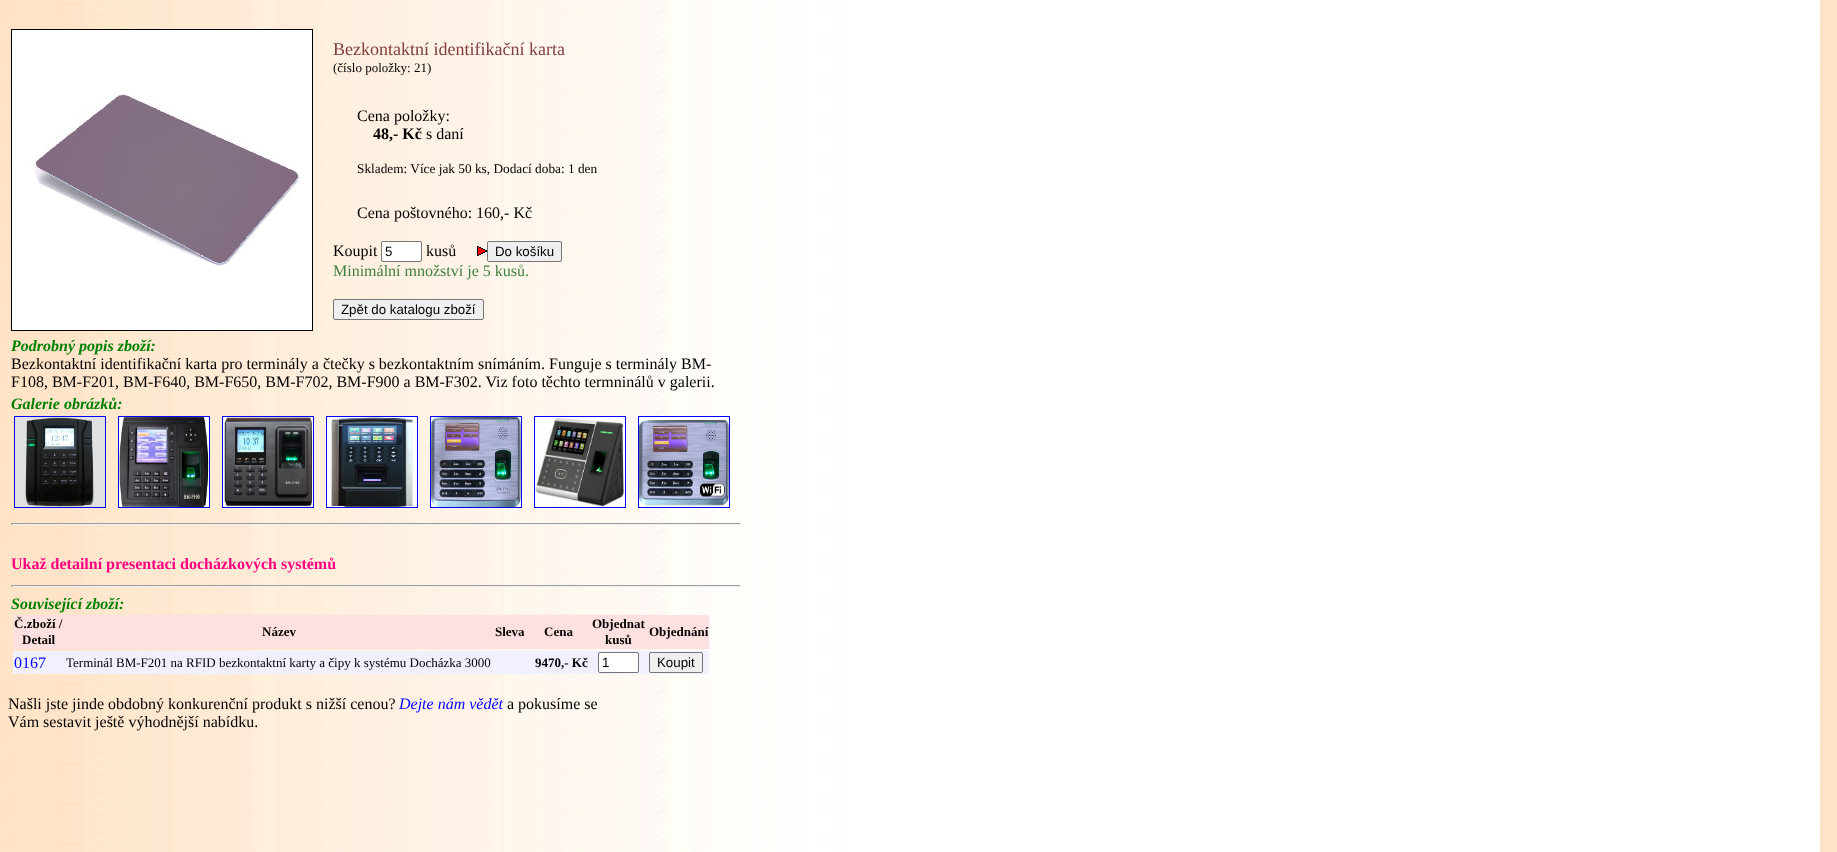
(async () => {
    const canvas = document.querySelector("canvas");
    canvas.width = 1837;
    canvas.height = 852;
    const context = canvas.getContext("2d");
    context.miterLimit = 4;
    context.fontKerning = "normal";
    function write(s, x, y, font, color) {
        context.font = font;
        context.fillStyle = color;
        context.fillText(s, x, y);
    }
    function block(x, y, w, h, color) {
        context.fillStyle = color;
        context.fillRect(x, y, w, h);
    }
    async function photo(src, x, y, w, h) {
        const img = new Image();
        img.src = src;
        await img.decode();
        context.drawImage(img, x, y, w, h);
    }

    block(0, 0, 1837, 852, "rgb(255, 255, 255)");
    await photo("media/1.png", 0, 0, 1837, 852);
    context.strokeStyle = "rgb(0, 0, 0)";
    context.strokeRect(11.5, 29.5, 301, 301);
    await photo("media/2.png", 12, 30, 300, 300);
    write("Bezkontaktní identifikační karta", 333, 55, "18px Liberation Serif", "rgb(128, 64, 64)");
    write("(číslo položky: 21)", 333, 72, "13px Liberation Serif", "rgb(0, 0, 0)");
    write("Cena položky:", 357, 121, "16px Liberation Serif", "rgb(0, 0, 0)");
    write("48,- Kč", 373, 139, "bold 16px Liberation Serif", "rgb(0, 0, 0)");
    write("s daní", 426, 139, "16px Liberation Serif", "rgb(0, 0, 0)");
    write("Skladem: Více jak 50 ks, Dodací doba: 1 den", 357, 173, "13.3px Liberation Serif", "rgb(0, 0, 0)");
    write("Cena poštovného: 160,- Kč", 357, 218, "16px Liberation Serif", "rgb(0, 0, 0)");
    write("Koupit", 333, 256, "16px Liberation Serif", "rgb(0, 0, 0)");
    context.fillStyle = "rgb(255, 255, 255)";
    context.beginPath();
    context.roundRect(381.5, 241.5, 40, 20, 1.5);
    context.fill();
    context.strokeStyle = "rgb(118, 118, 118)";
    context.stroke();
    write("5", 385, 256, "13.3px Liberation Sans", "rgb(0, 0, 0)");
    write("kusů", 426, 256, "16px Liberation Serif", "rgb(0, 0, 0)");
    await photo("media/3.png", 477, 246, 10, 10);
    context.fillStyle = "rgb(239, 239, 239)";
    context.beginPath();
    context.roundRect(487.5, 241.5, 74, 20, 1.5);
    context.fill();
    context.stroke();
    write("Do košíku", 495, 256, "13.3px Liberation Sans", "rgb(0, 0, 0)");
    write("Minimální množství je 5 kusů.", 333, 276, "16px Liberation Serif", "rgb(64, 128, 64)");
    context.fillStyle = "rgb(239, 239, 239)";
    context.beginPath();
    context.roundRect(333.5, 299.5, 150, 20, 1.5);
    context.fill();
    context.stroke();
    write("Zpět do katalogu zboží", 341, 314, "13.3px Liberation Sans", "rgb(0, 0, 0)");
    write("Podrobný popis zboží:", 11, 351, "italic bold 16px Liberation Serif", "rgb(0, 128, 0)");
    write("Bezkontaktní identifikační karta pro terminály a čtečky s bezkontaktním snímáním. Funguje s terminály BM-", 11, 369, "16px Liberation Serif", "rgb(0, 0, 0)");
    write("F108, BM-F201, BM-F640, BM-F650, BM-F702, BM-F900 a BM-F302. Viz foto těchto termninálů v galerii.", 11, 387, "16px Liberation Serif", "rgb(0, 0, 0)");
    write("Galerie obrázků:", 11, 409, "italic bold 16px Liberation Serif", "rgb(0, 128, 0)");
    context.strokeStyle = "rgb(0, 0, 255)";
    context.strokeRect(14.5, 416.5, 91, 91);
    await photo("media/4.png", 15, 417, 90, 90);
    context.strokeRect(118.5, 416.5, 91, 91);
    await photo("media/5.png", 119, 417, 90, 90);
    context.strokeRect(222.5, 416.5, 91, 91);
    await photo("media/6.png", 223, 417, 90, 90);
    context.strokeRect(326.5, 416.5, 91, 91);
    await photo("media/7.png", 327, 417, 90, 90);
    context.strokeRect(430.5, 416.5, 91, 91);
    await photo("media/8.png", 431, 417, 90, 90);
    context.strokeRect(534.5, 416.5, 91, 91);
    await photo("media/9.png", 535, 417, 90, 90);
    context.strokeRect(638.5, 416.5, 91, 91);
    await photo("media/10.png", 639, 417, 90, 90);
    block(11, 523, 730, 1, "rgb(159, 159, 159)");
    block(740, 523, 1, 2, "rgb(238, 238, 238)");
    block(11, 524, 730, 1, "rgb(238, 238, 238)");
    block(11, 523, 1, 2, "rgb(159, 159, 159)");
    write("Ukaž detailní presentaci docházkových systémů", 11, 569, "bold 16px Liberation Serif", "rgb(255, 0, 128)");
    block(11, 585, 730, 1, "rgb(159, 159, 159)");
    block(740, 585, 1, 2, "rgb(238, 238, 238)");
    block(11, 586, 730, 1, "rgb(238, 238, 238)");
    block(11, 585, 1, 2, "rgb(159, 159, 159)");
    write("Související zboží:", 11, 609, "italic bold 16px Liberation Serif", "rgb(0, 128, 0)");
    block(13, 615, 696, 34, "rgb(255, 224, 224)");
    write("Č.zboží /", 14, 628, "bold 13px Liberation Serif", "rgb(0, 0, 0)");
    write("Detail", 22, 644, "bold 13px Liberation Serif", "rgb(0, 0, 0)");
    write("Název", 262, 636, "bold 13px Liberation Serif", "rgb(0, 0, 0)");
    write("Sleva", 495, 636, "bold 13px Liberation Serif", "rgb(0, 0, 0)");
    write("Cena", 544, 636, "bold 13px Liberation Serif", "rgb(0, 0, 0)");
    write("Objednat", 592, 628, "bold 13px Liberation Serif", "rgb(0, 0, 0)");
    write("kusů", 605, 644, "bold 13px Liberation Serif", "rgb(0, 0, 0)");
    write("Objednání", 649, 636, "bold 13px Liberation Serif", "rgb(0, 0, 0)");
    block(13, 651, 696, 23, "rgb(240, 240, 255)");
    write("0167", 14, 668, "16px Liberation Serif", "rgb(0, 0, 255)");
    write("Terminál BM-F201 na RFID bezkontaktní karty a čipy k systému Docházka 3000", 66, 667, "13px Liberation Serif", "rgb(0, 0, 0)");
    write("9470,- Kč", 535, 667, "bold 13px Liberation Serif", "rgb(0, 0, 0)");
    context.fillStyle = "rgb(255, 255, 255)";
    context.beginPath();
    context.roundRect(598.5, 652.5, 40, 20, 1.5);
    context.fill();
    context.strokeStyle = "rgb(118, 118, 118)";
    context.stroke();
    write("1", 602, 667, "13.3px Liberation Sans", "rgb(0, 0, 0)");
    context.fillStyle = "rgb(239, 239, 239)";
    context.beginPath();
    context.roundRect(649.5, 652.5, 53, 20, 1.5);
    context.fill();
    context.stroke();
    write("Koupit", 657, 667, "13.3px Liberation Sans", "rgb(0, 0, 0)");
    write("Našli jste jinde obdobný konkurenční produkt s nižší cenou?", 8, 709, "16px Liberation Serif", "rgb(0, 0, 0)");
    write("Dejte nám vědět", 399, 709, "italic 16px Liberation Serif", "rgb(0, 0, 255)");
    write("a pokusíme se", 507, 709, "16px Liberation Serif", "rgb(0, 0, 0)");
    write("Vám sestavit ještě výhodnější nabídku.", 8, 727, "16px Liberation Serif", "rgb(0, 0, 0)");
})();
